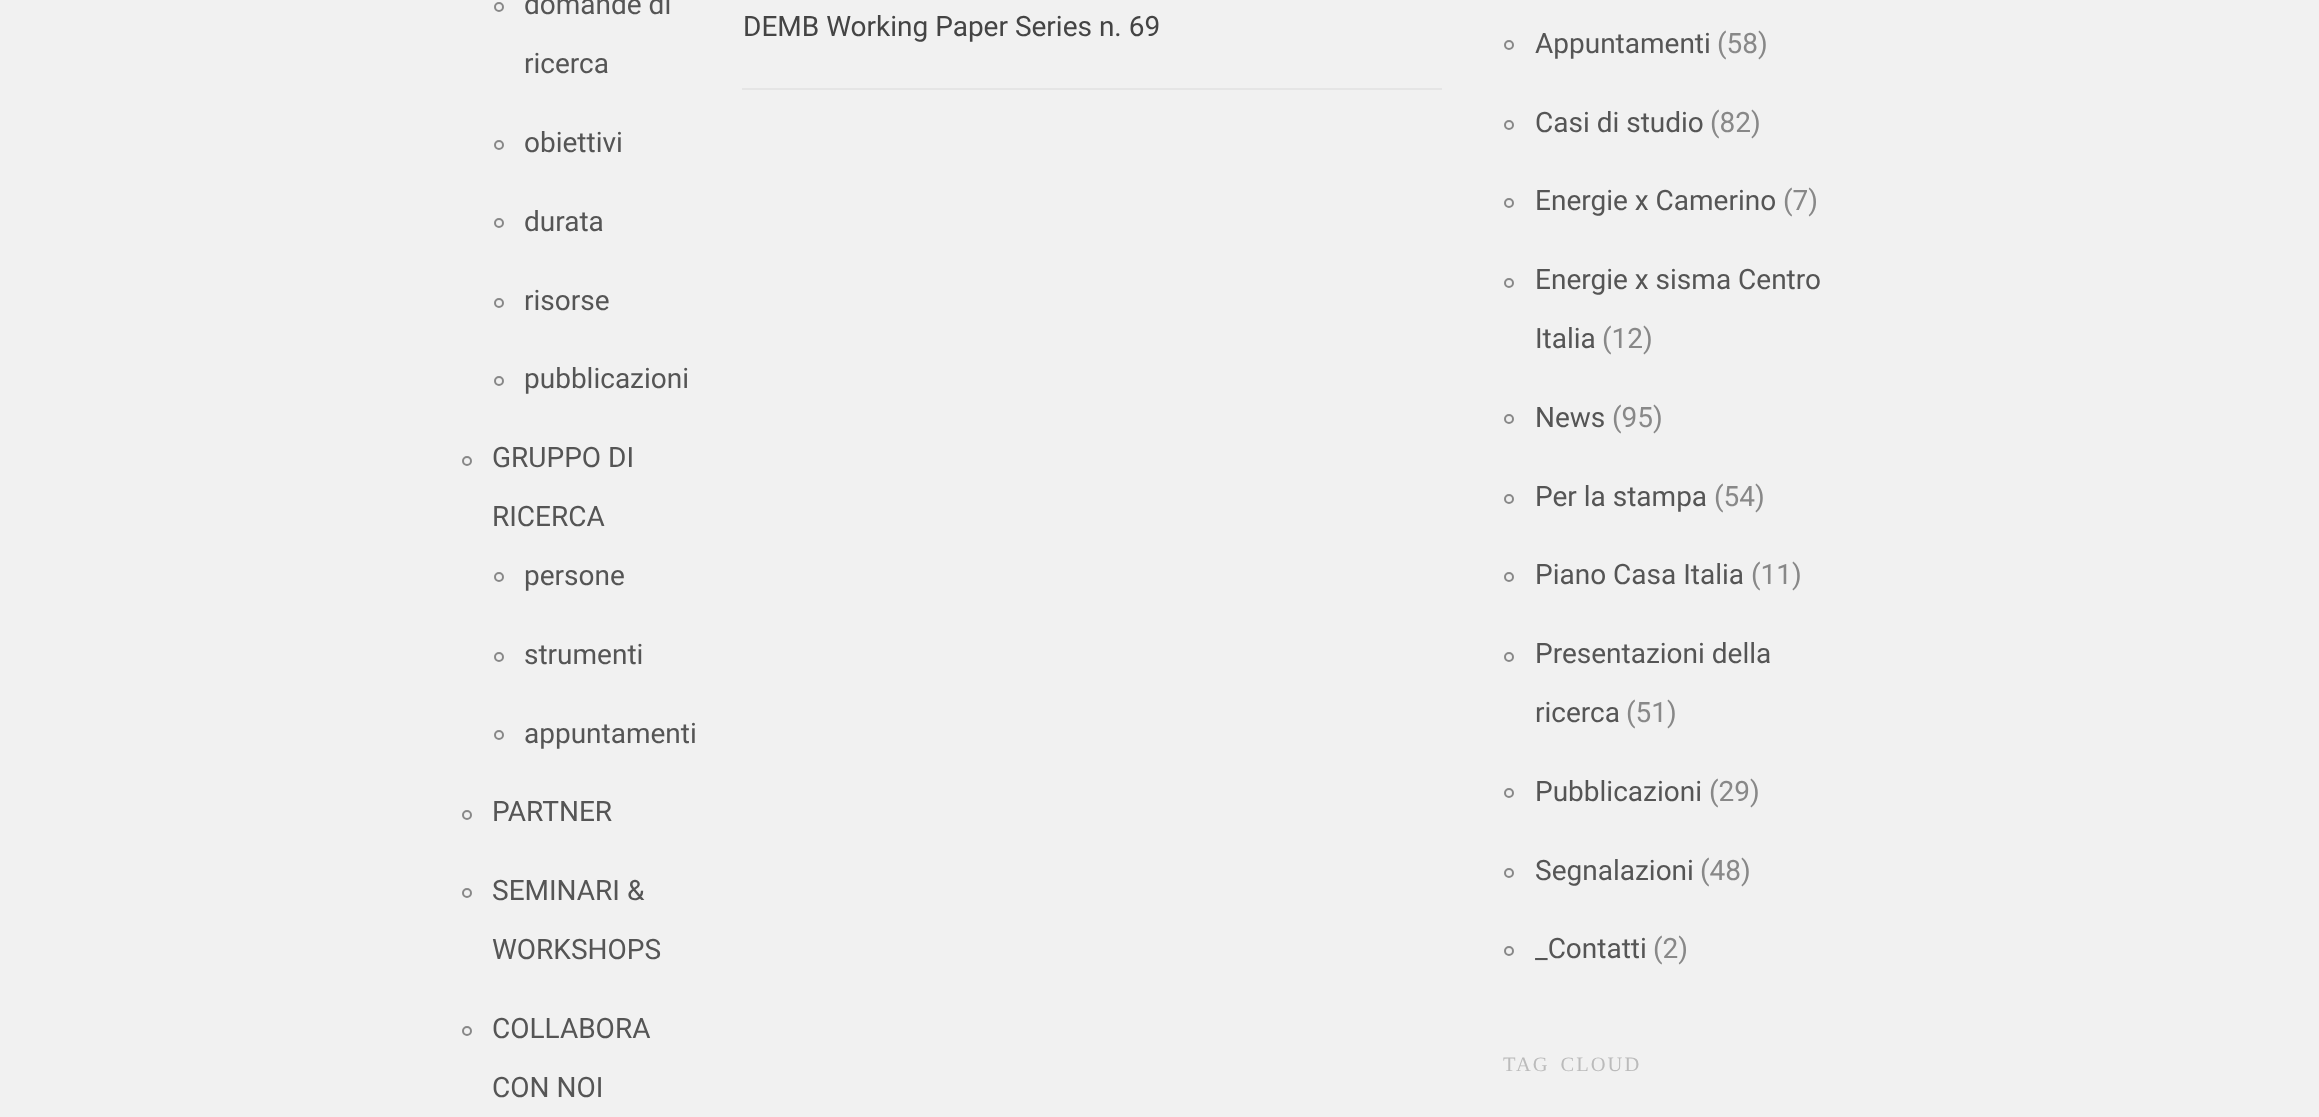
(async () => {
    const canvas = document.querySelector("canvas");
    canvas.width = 2319;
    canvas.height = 1117;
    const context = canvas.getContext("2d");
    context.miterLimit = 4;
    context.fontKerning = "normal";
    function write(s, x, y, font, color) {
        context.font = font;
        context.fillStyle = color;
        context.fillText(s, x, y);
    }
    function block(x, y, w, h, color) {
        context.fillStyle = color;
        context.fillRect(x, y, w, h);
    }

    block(0, 0, 2319, 1117, "rgb(241, 241, 241)");
    context.beginPath();
    context.arc(499, 7, 4, 0, Math.PI * 2);
    context.strokeStyle = "rgb(136, 136, 136)";
    context.lineWidth = 2;
    context.stroke();
    write("domande di", 524, 14, "28px Roboto", "rgb(85, 85, 85)");
    write("ricerca", 524, 73, "28px Roboto", "rgb(85, 85, 85)");
    context.beginPath();
    context.arc(499, 145, 4, 0, Math.PI * 2);
    context.stroke();
    write("obiettivi", 524, 152, "28px Roboto", "rgb(85, 85, 85)");
    context.beginPath();
    context.arc(499, 223, 4, 0, Math.PI * 2);
    context.stroke();
    write("durata", 524, 231, "28px Roboto", "rgb(85, 85, 85)");
    context.beginPath();
    context.arc(499, 303, 4, 0, Math.PI * 2);
    context.stroke();
    write("risorse", 524, 310, "28px Roboto", "rgb(85, 85, 85)");
    context.beginPath();
    context.arc(499, 381, 4, 0, Math.PI * 2);
    context.stroke();
    write("pubblicazioni", 524, 388, "28px Roboto", "rgb(85, 85, 85)");
    context.beginPath();
    context.arc(467, 461, 4, 0, Math.PI * 2);
    context.stroke();
    write("GRUPPO DI", 492, 467, "28px Roboto", "rgb(85, 85, 85)");
    write("RICERCA", 492, 526, "28px Roboto", "rgb(85, 85, 85)");
    context.beginPath();
    context.arc(499, 577, 4, 0, Math.PI * 2);
    context.stroke();
    write("persone", 524, 585, "28px Roboto", "rgb(85, 85, 85)");
    context.beginPath();
    context.arc(499, 657, 4, 0, Math.PI * 2);
    context.stroke();
    write("strumenti", 524, 664, "28px Roboto", "rgb(85, 85, 85)");
    context.beginPath();
    context.arc(499, 735, 4, 0, Math.PI * 2);
    context.stroke();
    write("appuntamenti", 524, 743, "28px Roboto", "rgb(85, 85, 85)");
    context.beginPath();
    context.arc(467, 815, 4, 0, Math.PI * 2);
    context.stroke();
    write("PARTNER", 492, 821, "28px Roboto", "rgb(85, 85, 85)");
    context.beginPath();
    context.arc(467, 893, 4, 0, Math.PI * 2);
    context.stroke();
    write("SEMINARI &", 492, 900, "28px Roboto", "rgb(85, 85, 85)");
    write("WORKSHOPS", 492, 959, "28px Roboto", "rgb(85, 85, 85)");
    context.beginPath();
    context.arc(467, 1031, 4, 0, Math.PI * 2);
    context.stroke();
    write("COLLABORA", 492, 1038, "28px Roboto", "rgb(85, 85, 85)");
    write("CON NOI", 492, 1097, "28px Roboto", "rgb(85, 85, 85)");
    block(742, 88, 700, 2, "rgb(229, 229, 229)");
    write("DEMB Working Paper Series n. 69", 743, 36, "28px Roboto", "rgb(68, 68, 68)");
    context.beginPath();
    context.arc(1509, 45, 4, 0, Math.PI * 2);
    context.stroke();
    write("Appuntamenti", 1535, 53, "28px Roboto", "rgb(85, 85, 85)");
    write("(58)", 1717, 53, "28px Roboto", "rgb(136, 136, 136)");
    context.beginPath();
    context.arc(1509, 125, 4, 0, Math.PI * 2);
    context.stroke();
    write("Casi di studio", 1535, 132, "28px Roboto", "rgb(85, 85, 85)");
    write("(82)", 1710, 132, "28px Roboto", "rgb(136, 136, 136)");
    context.beginPath();
    context.arc(1509, 203, 4, 0, Math.PI * 2);
    context.stroke();
    write("Energie x Camerino", 1535, 210, "28px Roboto", "rgb(85, 85, 85)");
    write("(7)", 1783, 210, "28px Roboto", "rgb(136, 136, 136)");
    context.beginPath();
    context.arc(1509, 283, 4, 0, Math.PI * 2);
    context.stroke();
    write("Energie x sisma Centro", 1535, 289, "28px Roboto", "rgb(85, 85, 85)");
    write("Italia", 1535, 348, "28px Roboto", "rgb(85, 85, 85)");
    write("(12)", 1602, 348, "28px Roboto", "rgb(136, 136, 136)");
    context.beginPath();
    context.arc(1509, 419, 4, 0, Math.PI * 2);
    context.stroke();
    write("News", 1535, 427, "28px Roboto", "rgb(85, 85, 85)");
    write("(95)", 1612, 427, "28px Roboto", "rgb(136, 136, 136)");
    context.beginPath();
    context.arc(1509, 499, 4, 0, Math.PI * 2);
    context.stroke();
    write("Per la stampa", 1535, 506, "28px Roboto", "rgb(85, 85, 85)");
    write("(54)", 1714, 506, "28px Roboto", "rgb(136, 136, 136)");
    context.beginPath();
    context.arc(1509, 577, 4, 0, Math.PI * 2);
    context.stroke();
    write("Piano Casa Italia", 1535, 584, "28px Roboto", "rgb(85, 85, 85)");
    write("(11)", 1751, 584, "28px Roboto", "rgb(136, 136, 136)");
    context.beginPath();
    context.arc(1509, 657, 4, 0, Math.PI * 2);
    context.stroke();
    write("Presentazioni della", 1535, 663, "28px Roboto", "rgb(85, 85, 85)");
    write("ricerca", 1535, 722, "28px Roboto", "rgb(85, 85, 85)");
    write("(51)", 1626, 722, "28px Roboto", "rgb(136, 136, 136)");
    context.beginPath();
    context.arc(1509, 793, 4, 0, Math.PI * 2);
    context.stroke();
    write("Pubblicazioni", 1535, 801, "28px Roboto", "rgb(85, 85, 85)");
    write("(29)", 1709, 801, "28px Roboto", "rgb(136, 136, 136)");
    context.beginPath();
    context.arc(1509, 873, 4, 0, Math.PI * 2);
    context.stroke();
    write("Segnalazioni", 1535, 880, "28px Roboto", "rgb(85, 85, 85)");
    write("(48)", 1700, 880, "28px Roboto", "rgb(136, 136, 136)");
    context.beginPath();
    context.arc(1509, 951, 4, 0, Math.PI * 2);
    context.stroke();
    write("_Contatti", 1535, 958, "28px Roboto", "rgb(85, 85, 85)");
    write("(2)", 1653, 958, "28px Roboto", "rgb(136, 136, 136)");
    context.letterSpacing = "2px";
    context.wordSpacing = "4px";
    write("TAG CLOUD", 1503, 1071, "20.5px Liberation Serif", "rgb(187, 187, 187)");
})();
